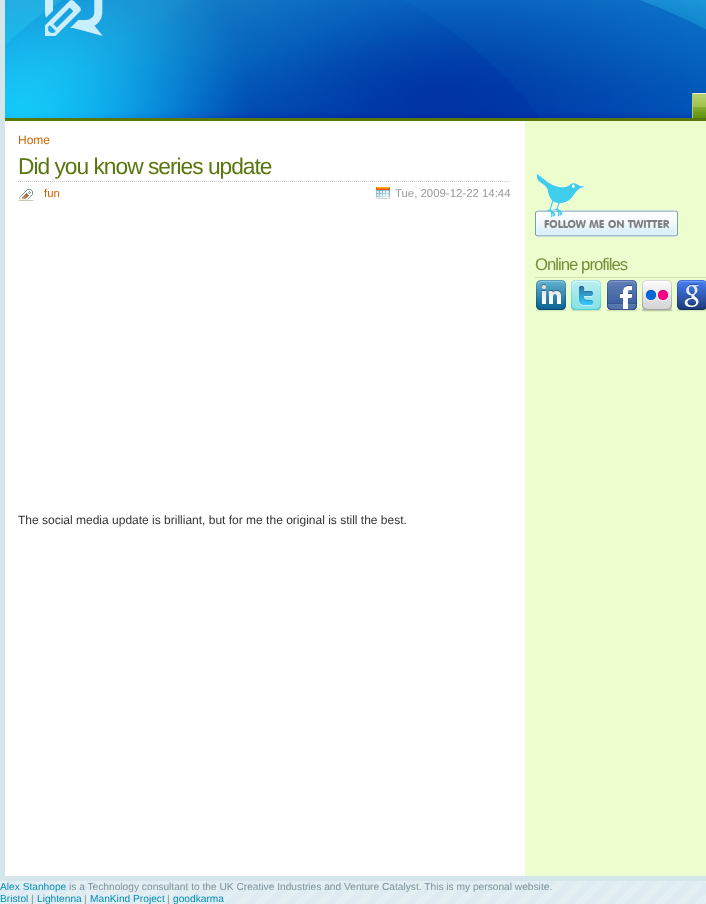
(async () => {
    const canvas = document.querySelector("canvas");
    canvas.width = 706;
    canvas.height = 904;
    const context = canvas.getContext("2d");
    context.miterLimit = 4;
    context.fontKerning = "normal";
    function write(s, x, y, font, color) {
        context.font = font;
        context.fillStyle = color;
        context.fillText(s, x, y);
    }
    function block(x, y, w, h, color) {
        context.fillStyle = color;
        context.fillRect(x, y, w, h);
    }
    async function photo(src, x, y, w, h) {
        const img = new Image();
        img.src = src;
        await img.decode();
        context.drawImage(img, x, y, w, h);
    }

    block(0, 0, 706, 904, "rgb(255, 255, 255)");
    await photo("media/1.png", 0, 881, 706, 23);
    block(525, 121, 181, 755, "rgb(236, 253, 206)");
    block(0, 876, 706, 5, "rgb(213, 230, 235)");
    block(0, 0, 5, 881, "rgb(213, 230, 235)");
    await photo("media/2.png", 5, 0, 701, 118);
    block(5, 118, 701, 3, "rgb(89, 120, 10)");
    await photo("media/3.png", 45, 0, 58, 36);
    await photo("media/4.png", 693, 94, 13, 24);
    block(692, 93, 14, 1, "rgb(230, 238, 208)");
    block(692, 93, 1, 25, "rgb(175, 205, 105)");
    write("Home", 18, 144, "12px Liberation Sans", "rgb(204, 102, 0)");
    context.beginPath();
    context.moveTo(18, 181.5);
    context.lineTo(510, 181.5);
    context.strokeStyle = "rgb(204, 204, 204)";
    context.setLineDash([1, 1]);
    context.stroke();
    context.letterSpacing = "-1px";
    write("Did you know series update", 18, 174, "22.75px Liberation Sans", "rgb(89, 119, 14)");
    await photo("media/5.png", 18, 189, 16, 12);
    context.letterSpacing = "0px";
    write("fun", 44, 197, "11.4px Liberation Sans", "rgb(204, 102, 0)");
    await photo("media/6.png", 375, 187, 16, 12);
    write("Tue, 2009-12-22 14:44", 395, 197, "11.4px Liberation Sans", "rgb(153, 153, 153)");
    write("The social media update is brilliant, but for me the original is still the best.", 18, 524, "12px Liberation Sans", "rgb(51, 51, 51)");
    await photo("media/7.png", 535, 174, 143, 63);
    block(535, 277, 171, 1, "rgb(207, 225, 172)");
    context.letterSpacing = "-1px";
    write("Online profiles", 535, 270, "16.75px Liberation Sans", "rgb(117, 141, 56)");
    await photo("media/8.png", 536, 280, 30, 32);
    await photo("media/9.png", 571, 280, 30, 32);
    await photo("media/10.png", 606, 280, 32, 32);
    await photo("media/11.png", 641, 280, 32, 32);
    await photo("media/12.png", 677, 280, 29, 32);
    context.letterSpacing = "0px";
    write("Alex Stanhope", 0, 890, "10.2px Liberation Sans", "rgb(4, 141, 180)");
    write("is a Technology consultant to the UK Creative Industries and Venture Catalyst. This is my personal website.", 69, 890, "10.2px Liberation Sans", "rgb(122, 146, 153)");
    write("Bristol", 0, 902, "10.2px Liberation Sans", "rgb(4, 141, 180)");
    write("|", 31, 902, "10.2px Liberation Sans", "rgb(122, 146, 153)");
    write("Lightenna", 37, 902, "10.2px Liberation Sans", "rgb(4, 141, 180)");
    write("|", 84, 902, "10.2px Liberation Sans", "rgb(122, 146, 153)");
    write("ManKind Project", 90, 902, "10.2px Liberation Sans", "rgb(4, 141, 180)");
    write("|", 167, 902, "10.2px Liberation Sans", "rgb(122, 146, 153)");
    write("goodkarma", 173, 902, "10.2px Liberation Sans", "rgb(4, 141, 180)");
})();
